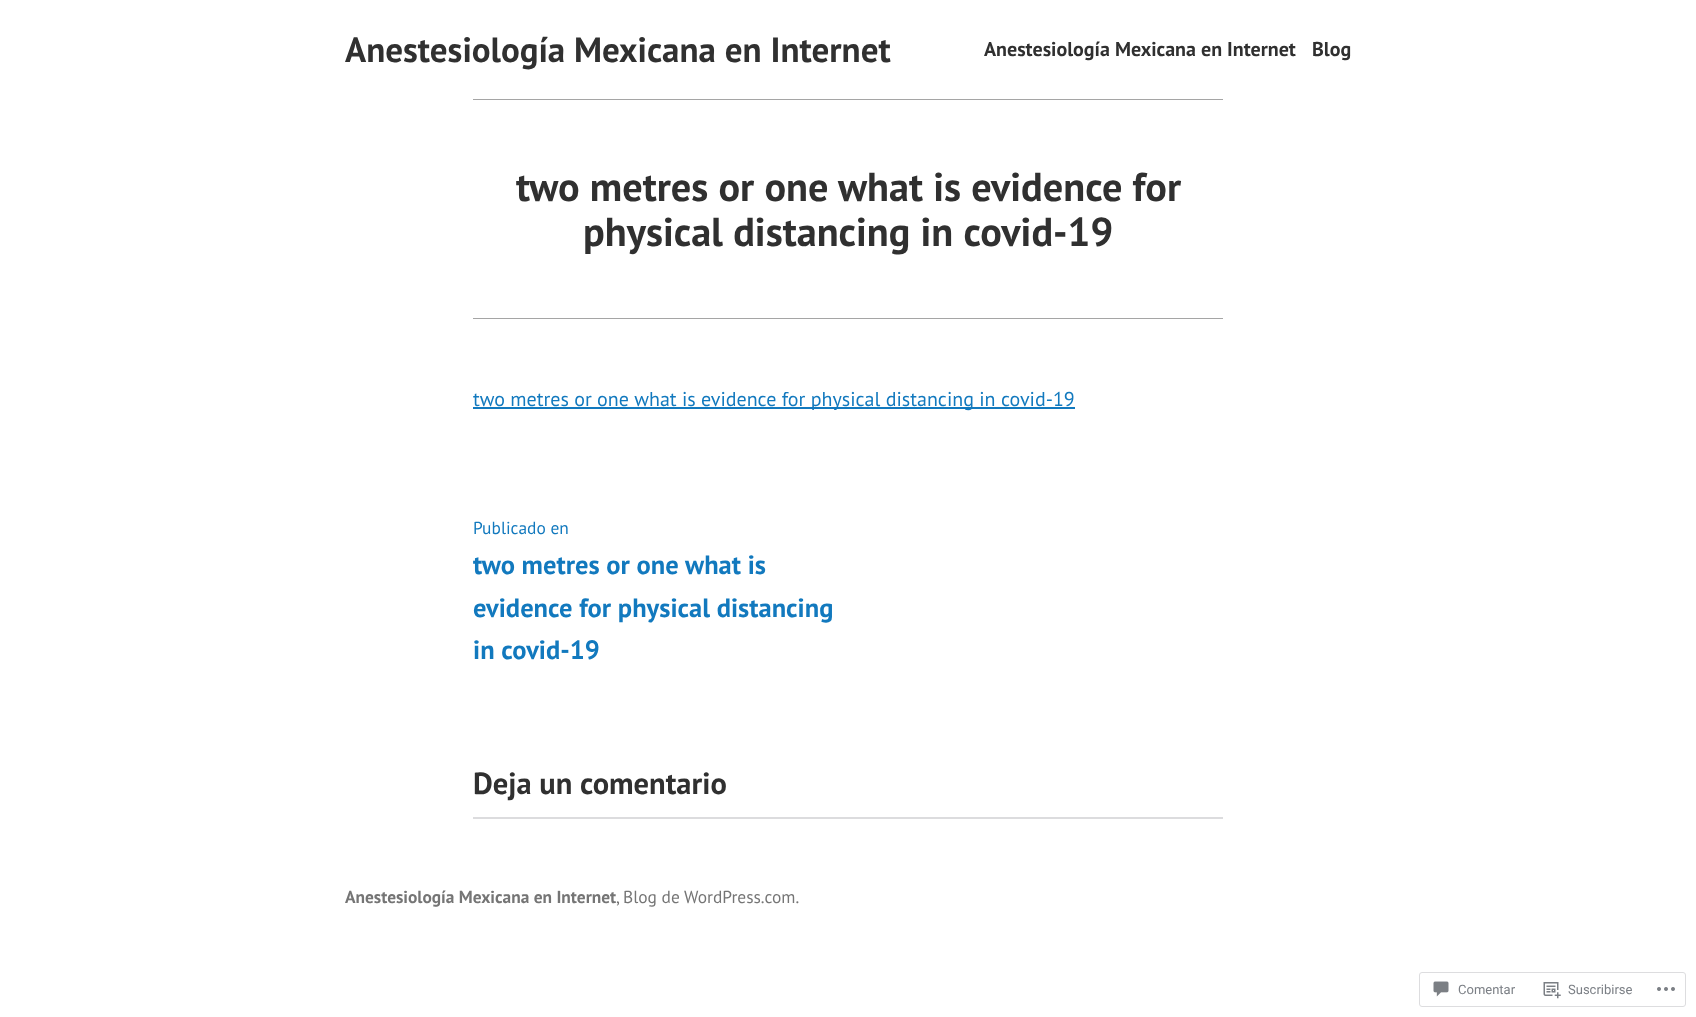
(async () => {
    const canvas = document.querySelector("canvas");
    canvas.width = 1696;
    canvas.height = 1017;
    const context = canvas.getContext("2d");
    context.miterLimit = 4;
    context.fontKerning = "normal";
    function write(s, x, y, font, color) {
        context.font = font;
        context.fillStyle = color;
        context.fillText(s, x, y);
    }
    function block(x, y, w, h, color) {
        context.fillStyle = color;
        context.fillRect(x, y, w, h);
    }
    async function photo(src, x, y, w, h) {
        const img = new Image();
        img.src = src;
        await img.decode();
        context.drawImage(img, x, y, w, h);
    }

    block(0, 0, 1696, 1017, "rgb(255, 255, 255)");
    write("Anestesiología Mexicana en Internet", 345, 62, "bold 35px PT Sans", "rgb(48, 48, 48)");
    write("Anestesiología Mexicana en Internet", 984, 56, "bold 20px PT Sans", "rgb(48, 48, 48)");
    write("Blog", 1312, 56, "bold 20px PT Sans", "rgb(48, 48, 48)");
    block(473, 99, 750, 1, "rgb(165, 165, 165)");
    write("two metres or one what is evidence for", 516, 201, "bold 40.25px PT Sans", "rgb(48, 48, 48)");
    write("physical distancing in covid-19", 583, 246, "bold 40.25px PT Sans", "rgb(48, 48, 48)");
    block(473, 318, 750, 1, "rgb(165, 165, 165)");
    block(473, 407, 602, 2, "rgb(18, 121, 190)");
    write("two metres or one what is evidence for physical distancing in covid-19", 473, 406, "20px PT Sans", "rgb(18, 121, 190)");
    write("Publicado en", 473, 534, "17.4px PT Sans", "rgb(18, 121, 190)");
    write("two metres or one what is", 473, 574, "bold 26.5px PT Sans", "rgb(18, 121, 190)");
    write("evidence for physical distancing", 473, 617, "bold 26.5px PT Sans", "rgb(18, 121, 190)");
    write("in covid-19", 473, 659, "bold 26.5px PT Sans", "rgb(18, 121, 190)");
    write("Deja un comentario", 473, 794, "bold 30.5px PT Sans", "rgb(48, 48, 48)");
    block(473, 817, 750, 2, "rgb(220, 220, 222)");
    write("Anestesiología Mexicana en Internet", 345, 903, "bold 17.4px PT Sans", "rgb(117, 117, 117)");
    write(",", 616, 903, "17.4px PT Sans", "rgb(117, 117, 117)");
    write("Blog de WordPress.com.", 623, 903, "17.4px PT Sans", "rgb(117, 117, 117)");
    context.beginPath();
    context.roundRect(1419.5, 972.5, 266, 34, 2.5);
    context.strokeStyle = "rgb(221, 221, 223)";
    context.stroke();
    await photo("media/1.png", 1433, 981, 16, 16);
    write("Comentar", 1458, 994, "13px Roboto", "rgb(123, 127, 133)");
    await photo("media/2.png", 1543, 982, 18, 17);
    write("Suscribirse", 1568, 994, "13px Roboto", "rgb(123, 127, 133)");
    await photo("media/3.png", 1657, 987, 18, 4);
})();
